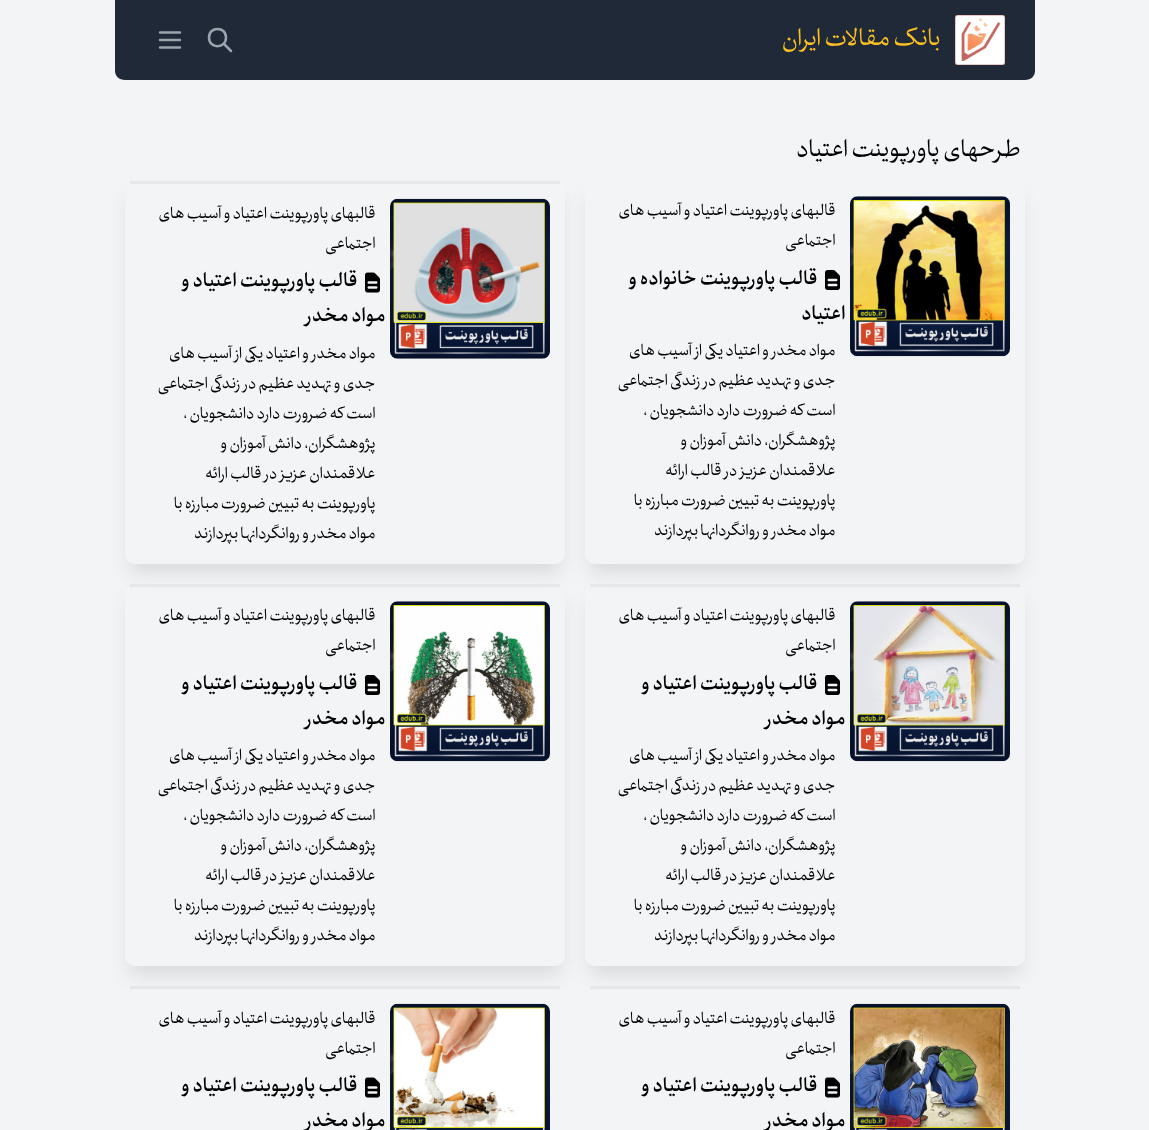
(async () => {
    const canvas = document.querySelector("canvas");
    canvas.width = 1149;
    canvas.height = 1130;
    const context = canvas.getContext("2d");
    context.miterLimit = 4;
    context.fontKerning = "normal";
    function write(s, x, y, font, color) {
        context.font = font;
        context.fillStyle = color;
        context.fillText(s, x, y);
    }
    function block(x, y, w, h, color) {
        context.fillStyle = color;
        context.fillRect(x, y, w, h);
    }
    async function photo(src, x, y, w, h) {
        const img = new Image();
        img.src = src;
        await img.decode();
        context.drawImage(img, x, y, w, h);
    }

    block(0, 0, 1149, 1130, "rgb(243, 244, 246)");
    context.fillStyle = "rgb(31, 41, 55)";
    context.beginPath();
    context.moveTo(115, 0);
    context.lineTo(1035, 0);
    context.lineTo(1035, 71);
    context.bezierCurveTo(1035, 76, 1031, 80, 1025, 80);
    context.lineTo(125, 80);
    context.bezierCurveTo(119, 80, 115, 76, 115, 71);
    context.closePath();
    context.fill();
    await photo("media/1.png", 955, 15, 50, 50);
    context.direction = "rtl";
    write("بانک مقالات ایران", 940, 45, "30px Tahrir", "rgb(251, 191, 36)");
    context.beginPath();
    context.moveTo(231, 51);
    context.lineTo(224, 44);
    context.moveTo(226, 37.5);
    context.bezierCurveTo(226, 49, 209, 49, 209, 37.5);
    context.bezierCurveTo(209, 26, 226, 26, 226, 37.5);
    context.closePath();
    context.strokeStyle = "rgb(156, 163, 175)";
    context.lineWidth = 2.5;
    context.lineCap = "round";
    context.lineJoin = "round";
    context.stroke();
    context.beginPath();
    context.moveTo(160, 32.5);
    context.lineTo(180, 32.5);
    context.moveTo(160, 40);
    context.lineTo(180, 40);
    context.moveTo(160, 47.5);
    context.lineTo(180, 47.5);
    context.stroke();
    write("طرحهای پاورپوینت اعتیاد", 1020, 156, "30px Tahrir", "rgb(0, 0, 0)");
    context.save();
    context.beginPath();
    context.moveTo(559, 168);
    context.lineTo(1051, 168);
    context.lineTo(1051, 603);
    context.lineTo(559, 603);
    context.closePath();
    context.moveTo(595, 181);
    context.lineTo(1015, 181);
    context.bezierCurveTo(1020.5, 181, 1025, 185.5, 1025, 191);
    context.lineTo(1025, 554);
    context.bezierCurveTo(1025, 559.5, 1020.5, 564, 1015, 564);
    context.lineTo(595, 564);
    context.bezierCurveTo(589.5, 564, 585, 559.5, 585, 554);
    context.lineTo(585, 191);
    context.bezierCurveTo(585, 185.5, 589.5, 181, 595, 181);
    context.closePath();
    context.clip("evenodd");
    context.fillStyle = "rgba(0, 0, 0, 0.1)";
    context.filter = "blur(9.5px)";
    context.beginPath();
    context.roundRect(589, 198, 432, 375, 6);
    context.fill();
    context.filter = "none";
    context.restore();
    await photo("media/2.png", 850, 196, 160, 161);
    write("قالبهای پاورپوینت اعتیاد و آسیب های", 835, 215, "20px Tahrir", "rgb(0, 0, 0)");
    write("اجتماعی", 835, 245, "20px Tahrir", "rgb(0, 0, 0)");
    await photo("media/3.png", 825, 270, 15, 20);
    write("قالب پاورپوینت خانواده و", 817, 284, "bold 25px Tahrir", "rgb(0, 0, 0)");
    write("اعتیاد", 845, 319, "bold 25px Tahrir", "rgb(0, 0, 0)");
    write("مواد مخدر و اعتیاد یکی از آسیب های", 835, 355, "20px Tahrir", "rgb(0, 0, 0)");
    write("جدی و تهدید عظیم در زندگی اجتماعی", 835, 385, "20px Tahrir", "rgb(0, 0, 0)");
    write("است که ضرورت دارد دانشجویان ،", 835, 415, "20px Tahrir", "rgb(0, 0, 0)");
    write("پژوهشگران، دانش آموزان و", 835, 445, "20px Tahrir", "rgb(0, 0, 0)");
    write("علاقمندان عزیز در قالب ارائه", 835, 475, "20px Tahrir", "rgb(0, 0, 0)");
    write("پاورپوینت به تبیین ضرورت مبارزه با", 835, 505, "20px Tahrir", "rgb(0, 0, 0)");
    write("مواد مخدر و روانگردانها بپردازند", 835, 535, "20px Tahrir", "rgb(0, 0, 0)");
    context.save();
    context.beginPath();
    context.moveTo(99, 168);
    context.lineTo(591, 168);
    context.lineTo(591, 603);
    context.lineTo(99, 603);
    context.closePath();
    context.moveTo(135, 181);
    context.lineTo(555, 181);
    context.bezierCurveTo(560.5, 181, 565, 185.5, 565, 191);
    context.lineTo(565, 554);
    context.bezierCurveTo(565, 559.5, 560.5, 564, 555, 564);
    context.lineTo(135, 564);
    context.bezierCurveTo(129.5, 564, 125, 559.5, 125, 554);
    context.lineTo(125, 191);
    context.bezierCurveTo(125, 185.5, 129.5, 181, 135, 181);
    context.closePath();
    context.clip("evenodd");
    context.fillStyle = "rgba(0, 0, 0, 0.1)";
    context.filter = "blur(9.5px)";
    context.beginPath();
    context.roundRect(129, 198, 432, 375, 6);
    context.fill();
    context.filter = "none";
    context.restore();
    block(130, 181, 430, 3, "rgb(229, 231, 235)");
    await photo("media/4.png", 390, 198, 160, 161);
    write("قالبهای پاورپوینت اعتیاد و آسیب های", 375, 218, "20px Tahrir", "rgb(0, 0, 0)");
    write("اجتماعی", 375, 248, "20px Tahrir", "rgb(0, 0, 0)");
    await photo("media/5.png", 365, 272, 15, 21);
    write("قالب پاورپوینت اعتیاد و", 357, 286, "bold 25px Tahrir", "rgb(0, 0, 0)");
    write("مواد مخدر", 385, 321, "bold 25px Tahrir", "rgb(0, 0, 0)");
    write("مواد مخدر و اعتیاد یکی از آسیب های", 375, 358, "20px Tahrir", "rgb(0, 0, 0)");
    write("جدی و تهدید عظیم در زندگی اجتماعی", 375, 388, "20px Tahrir", "rgb(0, 0, 0)");
    write("است که ضرورت دارد دانشجویان ،", 375, 418, "20px Tahrir", "rgb(0, 0, 0)");
    write("پژوهشگران، دانش آموزان و", 375, 448, "20px Tahrir", "rgb(0, 0, 0)");
    write("علاقمندان عزیز در قالب ارائه", 375, 478, "20px Tahrir", "rgb(0, 0, 0)");
    write("پاورپوینت به تبیین ضرورت مبارزه با", 375, 508, "20px Tahrir", "rgb(0, 0, 0)");
    write("مواد مخدر و روانگردانها بپردازند", 375, 538, "20px Tahrir", "rgb(0, 0, 0)");
    context.save();
    context.beginPath();
    context.moveTo(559, 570);
    context.lineTo(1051, 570);
    context.lineTo(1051, 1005);
    context.lineTo(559, 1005);
    context.closePath();
    context.moveTo(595, 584);
    context.lineTo(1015, 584);
    context.bezierCurveTo(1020.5, 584, 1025, 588.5, 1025, 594);
    context.lineTo(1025, 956);
    context.bezierCurveTo(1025, 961.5, 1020.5, 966, 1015, 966);
    context.lineTo(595, 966);
    context.bezierCurveTo(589.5, 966, 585, 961.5, 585, 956);
    context.lineTo(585, 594);
    context.bezierCurveTo(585, 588.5, 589.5, 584, 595, 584);
    context.closePath();
    context.clip("evenodd");
    context.fillStyle = "rgba(0, 0, 0, 0.1)";
    context.filter = "blur(9.5px)";
    context.beginPath();
    context.roundRect(589, 600, 432, 375, 6);
    context.fill();
    context.filter = "none";
    context.restore();
    block(590, 584, 430, 3, "rgb(229, 231, 235)");
    await photo("media/6.png", 850, 601, 160, 161);
    write("قالبهای پاورپوینت اعتیاد و آسیب های", 835, 620, "20px Tahrir", "rgb(0, 0, 0)");
    write("اجتماعی", 835, 650, "20px Tahrir", "rgb(0, 0, 0)");
    await photo("media/3.png", 825, 675, 15, 20);
    write("قالب پاورپوینت اعتیاد و", 817, 689, "bold 25px Tahrir", "rgb(0, 0, 0)");
    write("مواد مخدر", 845, 724, "bold 25px Tahrir", "rgb(0, 0, 0)");
    write("مواد مخدر و اعتیاد یکی از آسیب های", 835, 760, "20px Tahrir", "rgb(0, 0, 0)");
    write("جدی و تهدید عظیم در زندگی اجتماعی", 835, 790, "20px Tahrir", "rgb(0, 0, 0)");
    write("است که ضرورت دارد دانشجویان ،", 835, 820, "20px Tahrir", "rgb(0, 0, 0)");
    write("پژوهشگران، دانش آموزان و", 835, 850, "20px Tahrir", "rgb(0, 0, 0)");
    write("علاقمندان عزیز در قالب ارائه", 835, 880, "20px Tahrir", "rgb(0, 0, 0)");
    write("پاورپوینت به تبیین ضرورت مبارزه با", 835, 910, "20px Tahrir", "rgb(0, 0, 0)");
    write("مواد مخدر و روانگردانها بپردازند", 835, 940, "20px Tahrir", "rgb(0, 0, 0)");
    context.save();
    context.beginPath();
    context.moveTo(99, 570);
    context.lineTo(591, 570);
    context.lineTo(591, 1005);
    context.lineTo(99, 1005);
    context.closePath();
    context.moveTo(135, 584);
    context.lineTo(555, 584);
    context.bezierCurveTo(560.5, 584, 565, 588.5, 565, 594);
    context.lineTo(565, 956);
    context.bezierCurveTo(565, 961.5, 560.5, 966, 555, 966);
    context.lineTo(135, 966);
    context.bezierCurveTo(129.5, 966, 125, 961.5, 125, 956);
    context.lineTo(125, 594);
    context.bezierCurveTo(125, 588.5, 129.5, 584, 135, 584);
    context.closePath();
    context.clip("evenodd");
    context.fillStyle = "rgba(0, 0, 0, 0.1)";
    context.filter = "blur(9.5px)";
    context.beginPath();
    context.roundRect(129, 600, 432, 375, 6);
    context.fill();
    context.filter = "none";
    context.restore();
    block(130, 584, 430, 3, "rgb(229, 231, 235)");
    await photo("media/7.png", 390, 601, 160, 161);
    write("قالبهای پاورپوینت اعتیاد و آسیب های", 375, 620, "20px Tahrir", "rgb(0, 0, 0)");
    write("اجتماعی", 375, 650, "20px Tahrir", "rgb(0, 0, 0)");
    await photo("media/3.png", 365, 675, 15, 20);
    write("قالب پاورپوینت اعتیاد و", 357, 689, "bold 25px Tahrir", "rgb(0, 0, 0)");
    write("مواد مخدر", 385, 724, "bold 25px Tahrir", "rgb(0, 0, 0)");
    write("مواد مخدر و اعتیاد یکی از آسیب های", 375, 760, "20px Tahrir", "rgb(0, 0, 0)");
    write("جدی و تهدید عظیم در زندگی اجتماعی", 375, 790, "20px Tahrir", "rgb(0, 0, 0)");
    write("است که ضرورت دارد دانشجویان ،", 375, 820, "20px Tahrir", "rgb(0, 0, 0)");
    write("پژوهشگران، دانش آموزان و", 375, 850, "20px Tahrir", "rgb(0, 0, 0)");
    write("علاقمندان عزیز در قالب ارائه", 375, 880, "20px Tahrir", "rgb(0, 0, 0)");
    write("پاورپوینت به تبیین ضرورت مبارزه با", 375, 910, "20px Tahrir", "rgb(0, 0, 0)");
    write("مواد مخدر و روانگردانها بپردازند", 375, 940, "20px Tahrir", "rgb(0, 0, 0)");
    block(590, 986, 430, 3, "rgb(229, 231, 235)");
    await photo("media/8.png", 850, 1003, 160, 127);
    write("قالبهای پاورپوینت اعتیاد و آسیب های", 835, 1023, "20px Tahrir", "rgb(0, 0, 0)");
    write("اجتماعی", 835, 1053, "20px Tahrir", "rgb(0, 0, 0)");
    await photo("media/5.png", 825, 1077, 15, 21);
    write("قالب پاورپوینت اعتیاد و", 817, 1091, "bold 25px Tahrir", "rgb(0, 0, 0)");
    write("مواد مخدر", 845, 1126, "bold 25px Tahrir", "rgb(0, 0, 0)");
    block(130, 986, 430, 3, "rgb(229, 231, 235)");
    await photo("media/9.png", 390, 1003, 160, 127);
    write("قالبهای پاورپوینت اعتیاد و آسیب های", 375, 1023, "20px Tahrir", "rgb(0, 0, 0)");
    write("اجتماعی", 375, 1053, "20px Tahrir", "rgb(0, 0, 0)");
    await photo("media/5.png", 365, 1077, 15, 21);
    write("قالب پاورپوینت اعتیاد و", 357, 1091, "bold 25px Tahrir", "rgb(0, 0, 0)");
    write("مواد مخدر", 385, 1126, "bold 25px Tahrir", "rgb(0, 0, 0)");
})();
